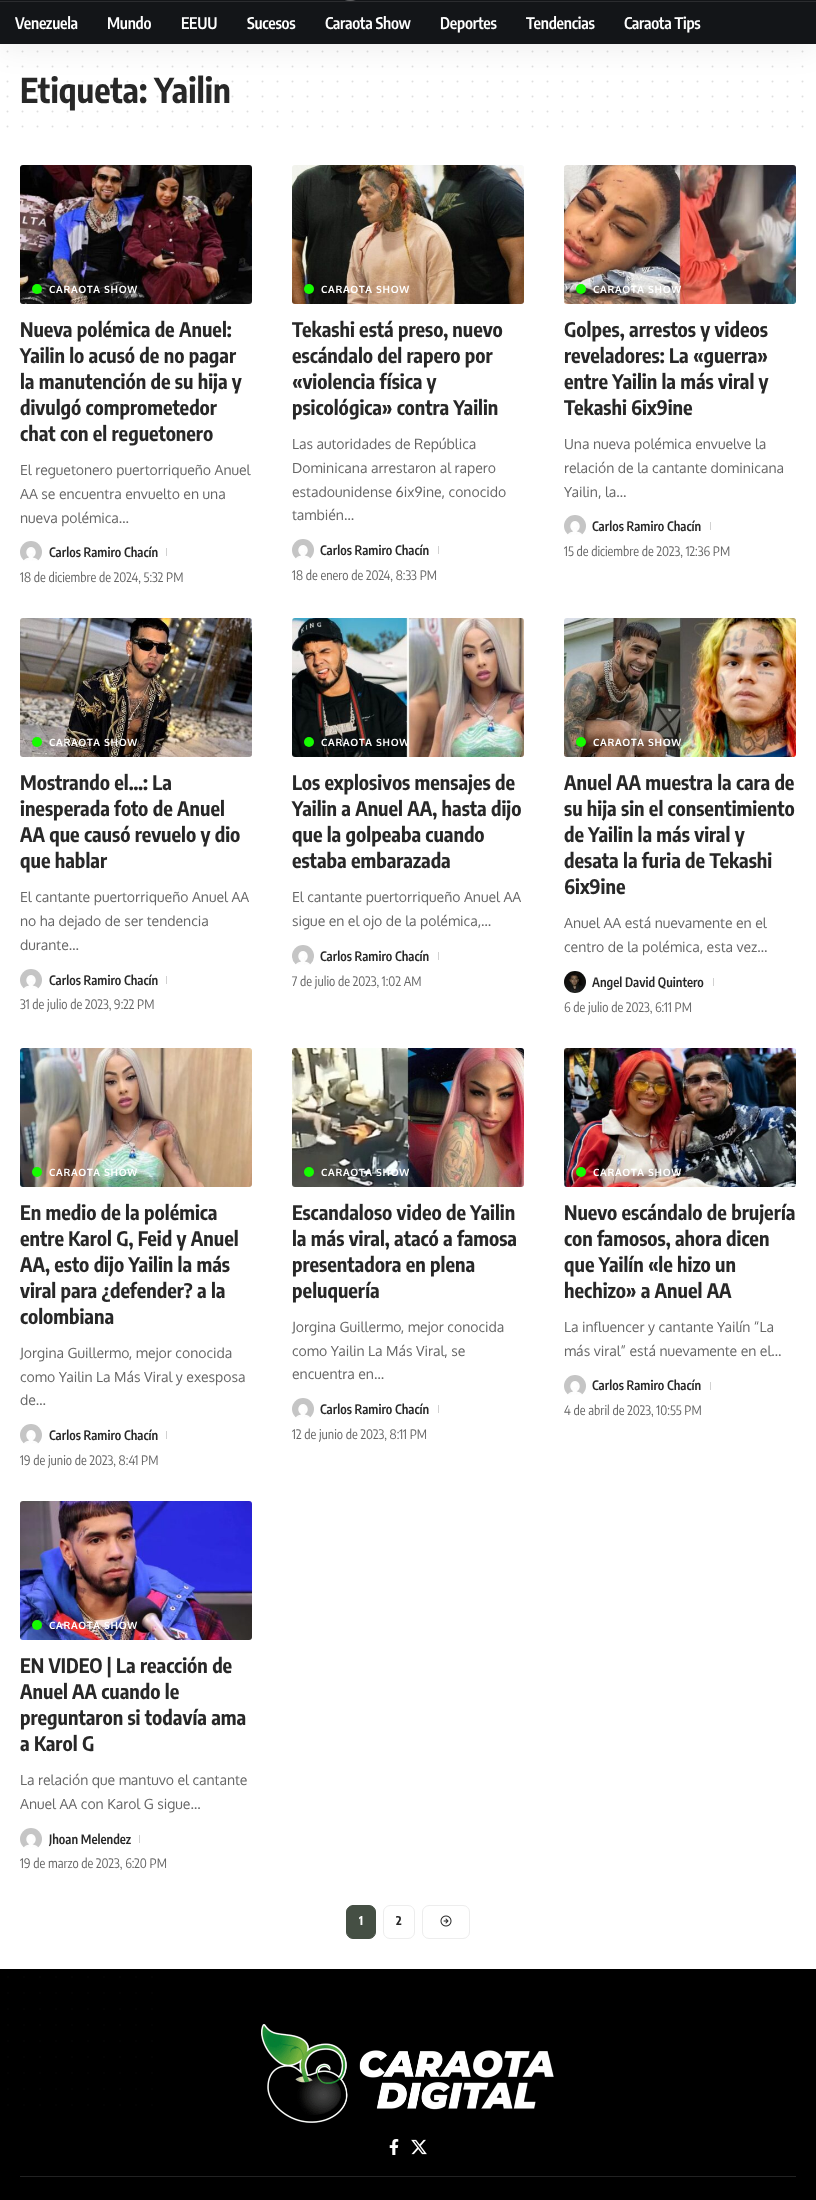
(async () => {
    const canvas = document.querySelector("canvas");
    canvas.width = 816;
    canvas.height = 2200;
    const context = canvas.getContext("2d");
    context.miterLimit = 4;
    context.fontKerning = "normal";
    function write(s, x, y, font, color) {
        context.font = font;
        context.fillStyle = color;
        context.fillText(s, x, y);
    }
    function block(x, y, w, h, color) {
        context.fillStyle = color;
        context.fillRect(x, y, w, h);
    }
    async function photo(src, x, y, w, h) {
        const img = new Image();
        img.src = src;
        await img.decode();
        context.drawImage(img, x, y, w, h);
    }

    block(0, 0, 816, 2200, "rgb(255, 255, 255)");
    context.beginPath();
    context.moveTo(7.5, 51.5);
    context.lineTo(802.7, 51.5);
    context.strokeStyle = "rgb(223, 223, 223)";
    context.lineWidth = 2;
    context.lineCap = "round";
    context.setLineDash([0, 15]);
    context.stroke();
    context.beginPath();
    context.moveTo(7.5, 66.5);
    context.lineTo(802.7, 66.5);
    context.stroke();
    write("Etiqueta: Yailin", 20, 103, "bold 34px Encode Sans Condensed", "rgb(40, 40, 40)");
    context.beginPath();
    context.moveTo(7.5, 81.5);
    context.lineTo(802.7, 81.5);
    context.strokeStyle = "rgba(40, 40, 40, 0.15)";
    context.stroke();
    context.fillStyle = "rgba(0, 0, 0, 0.07)";
    context.filter = "blur(15px)";
    context.beginPath();
    context.rect(0, -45, 816, 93);
    context.fill();
    context.filter = "none";
    block(0, 0, 816, 44, "rgb(19, 21, 24)");
    await photo("media/1.png", 345, 0, 11, 1);
    block(0, 1, 816, 1, "rgb(43, 44, 47)");
    context.letterSpacing = "-0.25px";
    write("Venezuela", 15, 29, "600 16px Encode Sans Condensed", "rgb(255, 255, 255)");
    write("Mundo", 107, 29, "600 16px Encode Sans Condensed", "rgb(255, 255, 255)");
    write("EEUU", 181, 29, "600 16px Encode Sans Condensed", "rgb(255, 255, 255)");
    write("Sucesos", 247, 29, "600 16px Encode Sans Condensed", "rgb(255, 255, 255)");
    write("Caraota Show", 325, 29, "600 16px Encode Sans Condensed", "rgb(255, 255, 255)");
    write("Deportes", 440, 29, "600 16px Encode Sans Condensed", "rgb(255, 255, 255)");
    write("Tendencias", 526, 29, "600 16px Encode Sans Condensed", "rgb(255, 255, 255)");
    write("Caraota Tips", 624, 29, "600 16px Encode Sans Condensed", "rgb(255, 255, 255)");
    context.beginPath();
    context.moveTo(7.5, 96.5);
    context.lineTo(802.7, 96.5);
    context.stroke();
    context.beginPath();
    context.moveTo(7.5, 111.5);
    context.lineTo(802.7, 111.5);
    context.strokeStyle = "rgb(223, 223, 223)";
    context.stroke();
    context.beginPath();
    context.moveTo(7.5, 126.5);
    context.lineTo(802.7, 126.5);
    context.stroke();
    await photo("media/2.png", 20, 165, 232, 139);
    context.fillStyle = "rgb(21, 252, 0)";
    context.beginPath();
    context.arc(37, 289, 5, 0, Math.PI * 2);
    context.fill();
    context.letterSpacing = "0.75px";
    write("CARAOTA SHOW", 49, 293, "bold 10px Oxygen", "rgb(255, 255, 255)");
    context.letterSpacing = "0px";
    write("Nueva polémica de Anuel:", 20, 337, "bold 20px Encode Sans Condensed", "rgb(40, 40, 40)");
    write("Yailin lo acusó de no pagar", 20, 363, "bold 20px Encode Sans Condensed", "rgb(40, 40, 40)");
    write("la manutención de su hija y", 20, 389, "bold 20px Encode Sans Condensed", "rgb(40, 40, 40)");
    write("divulgó comprometedor", 20, 415, "bold 20px Encode Sans Condensed", "rgb(40, 40, 40)");
    write("chat con el reguetonero", 20, 441, "bold 20px Encode Sans Condensed", "rgb(40, 40, 40)");
    write("El reguetonero puertorriqueño Anuel", 20, 475, "14px Oxygen", "rgb(102, 102, 102)");
    write("AA se encuentra envuelto en una", 20, 499, "14px Oxygen", "rgb(102, 102, 102)");
    write("nueva polémica…", 20, 523, "14px Oxygen", "rgb(102, 102, 102)");
    await photo("media/3.png", 20, 541, 22, 20);
    write("Carlos Ramiro Chacín", 49, 557, "600 13px Encode Sans Condensed", "rgb(40, 40, 40)");
    block(166, 548, 1, 8, "rgb(209, 209, 209)");
    write("18 de diciembre de 2024, 5:32 PM", 20, 582, "13px Encode Sans Condensed", "rgb(102, 102, 102)");
    await photo("media/4.png", 292, 165, 232, 139);
    context.fillStyle = "rgb(21, 252, 0)";
    context.beginPath();
    context.arc(309, 289, 5, 0, Math.PI * 2);
    context.fill();
    context.letterSpacing = "0.75px";
    write("CARAOTA SHOW", 321, 293, "bold 10px Oxygen", "rgb(255, 255, 255)");
    context.letterSpacing = "0px";
    write("Tekashi está preso, nuevo", 292, 337, "bold 20px Encode Sans Condensed", "rgb(40, 40, 40)");
    write("escándalo del rapero por", 292, 363, "bold 20px Encode Sans Condensed", "rgb(40, 40, 40)");
    write("«violencia física y", 292, 389, "bold 20px Encode Sans Condensed", "rgb(40, 40, 40)");
    write("psicológica» contra Yailin", 292, 415, "bold 20px Encode Sans Condensed", "rgb(40, 40, 40)");
    write("Las autoridades de República", 292, 449, "14px Oxygen", "rgb(102, 102, 102)");
    write("Dominicana arrestaron al rapero", 292, 473, "14px Oxygen", "rgb(102, 102, 102)");
    write("estadounidense 6ix9ine, conocido", 292, 497, "14px Oxygen", "rgb(102, 102, 102)");
    write("también…", 292, 520, "14px Oxygen", "rgb(102, 102, 102)");
    await photo("media/3.png", 292, 539, 22, 20);
    write("Carlos Ramiro Chacín", 320, 555, "600 13px Encode Sans Condensed", "rgb(40, 40, 40)");
    block(438, 546, 1, 8, "rgb(209, 209, 209)");
    write("18 de enero de 2024, 8:33 PM", 292, 580, "13px Encode Sans Condensed", "rgb(102, 102, 102)");
    await photo("media/5.png", 564, 165, 232, 139);
    context.fillStyle = "rgb(21, 252, 0)";
    context.beginPath();
    context.arc(581, 289, 5, 0, Math.PI * 2);
    context.fill();
    context.letterSpacing = "0.75px";
    write("CARAOTA SHOW", 593, 293, "bold 10px Oxygen", "rgb(255, 255, 255)");
    context.letterSpacing = "0px";
    write("Golpes, arrestos y videos", 564, 337, "bold 20px Encode Sans Condensed", "rgb(40, 40, 40)");
    write("reveladores: La «guerra»", 564, 363, "bold 20px Encode Sans Condensed", "rgb(40, 40, 40)");
    write("entre Yailin la más viral y", 564, 389, "bold 20px Encode Sans Condensed", "rgb(40, 40, 40)");
    write("Tekashi 6ix9ine", 564, 415, "bold 20px Encode Sans Condensed", "rgb(40, 40, 40)");
    write("Una nueva polémica envuelve la", 564, 449, "14px Oxygen", "rgb(102, 102, 102)");
    write("relación de la cantante dominicana", 564, 473, "14px Oxygen", "rgb(102, 102, 102)");
    write("Yailin, la…", 564, 497, "14px Oxygen", "rgb(102, 102, 102)");
    await photo("media/3.png", 564, 515, 22, 20);
    write("Carlos Ramiro Chacín", 592, 531, "600 13px Encode Sans Condensed", "rgb(40, 40, 40)");
    block(710, 522, 1, 8, "rgb(209, 209, 209)");
    write("15 de diciembre de 2023, 12:36 PM", 564, 556, "13px Encode Sans Condensed", "rgb(102, 102, 102)");
    await photo("media/6.png", 20, 618, 232, 139);
    context.fillStyle = "rgb(21, 252, 0)";
    context.beginPath();
    context.arc(37, 742, 5, 0, Math.PI * 2);
    context.fill();
    context.letterSpacing = "0.75px";
    write("CARAOTA SHOW", 49, 746, "bold 10px Oxygen", "rgb(255, 255, 255)");
    context.letterSpacing = "0px";
    write("Mostrando el…: La", 20, 790, "bold 20px Encode Sans Condensed", "rgb(40, 40, 40)");
    write("inesperada foto de Anuel", 20, 816, "bold 20px Encode Sans Condensed", "rgb(40, 40, 40)");
    write("AA que causó revuelo y dio", 20, 842, "bold 20px Encode Sans Condensed", "rgb(40, 40, 40)");
    write("que hablar", 20, 868, "bold 20px Encode Sans Condensed", "rgb(40, 40, 40)");
    write("El cantante puertorriqueño Anuel AA", 20, 902, "14px Oxygen", "rgb(102, 102, 102)");
    write("no ha dejado de ser tendencia", 20, 926, "14px Oxygen", "rgb(102, 102, 102)");
    write("durante…", 20, 950, "14px Oxygen", "rgb(102, 102, 102)");
    await photo("media/3.png", 20, 969, 22, 20);
    write("Carlos Ramiro Chacín", 49, 985, "600 13px Encode Sans Condensed", "rgb(40, 40, 40)");
    block(166, 976, 1, 8, "rgb(209, 209, 209)");
    write("31 de julio de 2023, 9:22 PM", 20, 1009, "13px Encode Sans Condensed", "rgb(102, 102, 102)");
    await photo("media/7.png", 292, 618, 232, 139);
    context.fillStyle = "rgb(21, 252, 0)";
    context.beginPath();
    context.arc(309, 742, 5, 0, Math.PI * 2);
    context.fill();
    context.letterSpacing = "0.75px";
    write("CARAOTA SHOW", 321, 746, "bold 10px Oxygen", "rgb(255, 255, 255)");
    context.letterSpacing = "0px";
    write("Los explosivos mensajes de", 292, 790, "bold 20px Encode Sans Condensed", "rgb(40, 40, 40)");
    write("Yailin a Anuel AA, hasta dijo", 292, 816, "bold 20px Encode Sans Condensed", "rgb(40, 40, 40)");
    write("que la golpeaba cuando", 292, 842, "bold 20px Encode Sans Condensed", "rgb(40, 40, 40)");
    write("estaba embarazada", 292, 868, "bold 20px Encode Sans Condensed", "rgb(40, 40, 40)");
    write("El cantante puertorriqueño Anuel AA", 292, 902, "14px Oxygen", "rgb(102, 102, 102)");
    write("sigue en el ojo de la polémica,…", 292, 926, "14px Oxygen", "rgb(102, 102, 102)");
    await photo("media/8.png", 292, 945, 22, 20);
    write("Carlos Ramiro Chacín", 320, 961, "600 13px Encode Sans Condensed", "rgb(40, 40, 40)");
    block(438, 952, 1, 8, "rgb(209, 209, 209)");
    write("7 de julio de 2023, 1:02 AM", 292, 986, "13px Encode Sans Condensed", "rgb(102, 102, 102)");
    await photo("media/9.png", 564, 618, 232, 139);
    context.fillStyle = "rgb(21, 252, 0)";
    context.beginPath();
    context.arc(581, 742, 5, 0, Math.PI * 2);
    context.fill();
    context.letterSpacing = "0.75px";
    write("CARAOTA SHOW", 593, 746, "bold 10px Oxygen", "rgb(255, 255, 255)");
    context.letterSpacing = "0px";
    write("Anuel AA muestra la cara de", 564, 790, "bold 20px Encode Sans Condensed", "rgb(40, 40, 40)");
    write("su hija sin el consentimiento", 564, 816, "bold 20px Encode Sans Condensed", "rgb(40, 40, 40)");
    write("de Yailin la más viral y", 564, 842, "bold 20px Encode Sans Condensed", "rgb(40, 40, 40)");
    write("desata la furia de Tekashi", 564, 868, "bold 20px Encode Sans Condensed", "rgb(40, 40, 40)");
    write("6ix9ine", 564, 894, "bold 20px Encode Sans Condensed", "rgb(40, 40, 40)");
    write("Anuel AA está nuevamente en el", 564, 928, "14px Oxygen", "rgb(102, 102, 102)");
    write("centro de la polémica, esta vez…", 564, 952, "14px Oxygen", "rgb(102, 102, 102)");
    await photo("media/10.png", 564, 971, 22, 22);
    write("Angel David Quintero", 592, 987, "600 13px Encode Sans Condensed", "rgb(40, 40, 40)");
    block(713, 978, 1, 8, "rgb(209, 209, 209)");
    write("6 de julio de 2023, 6:11 PM", 564, 1012, "13px Encode Sans Condensed", "rgb(102, 102, 102)");
    await photo("media/11.png", 20, 1048, 232, 139);
    context.fillStyle = "rgb(21, 252, 0)";
    context.beginPath();
    context.arc(37, 1172, 5, 0, Math.PI * 2);
    context.fill();
    context.letterSpacing = "0.75px";
    write("CARAOTA SHOW", 49, 1176, "bold 10px Oxygen", "rgb(255, 255, 255)");
    context.letterSpacing = "0px";
    write("En medio de la polémica", 20, 1220, "bold 20px Encode Sans Condensed", "rgb(40, 40, 40)");
    write("entre Karol G, Feid y Anuel", 20, 1246, "bold 20px Encode Sans Condensed", "rgb(40, 40, 40)");
    write("AA, esto dijo Yailin la más", 20, 1272, "bold 20px Encode Sans Condensed", "rgb(40, 40, 40)");
    write("viral para ¿defender? a la", 20, 1298, "bold 20px Encode Sans Condensed", "rgb(40, 40, 40)");
    write("colombiana", 20, 1324, "bold 20px Encode Sans Condensed", "rgb(40, 40, 40)");
    write("Jorgina Guillermo, mejor conocida", 20, 1358, "14px Oxygen", "rgb(102, 102, 102)");
    write("como Yailin La Más Viral y exesposa", 20, 1382, "14px Oxygen", "rgb(102, 102, 102)");
    write("de…", 20, 1405, "14px Oxygen", "rgb(102, 102, 102)");
    await photo("media/3.png", 20, 1424, 22, 20);
    write("Carlos Ramiro Chacín", 49, 1440, "600 13px Encode Sans Condensed", "rgb(40, 40, 40)");
    block(166, 1431, 1, 8, "rgb(209, 209, 209)");
    write("19 de junio de 2023, 8:41 PM", 20, 1465, "13px Encode Sans Condensed", "rgb(102, 102, 102)");
    await photo("media/12.png", 292, 1048, 232, 139);
    context.fillStyle = "rgb(21, 252, 0)";
    context.beginPath();
    context.arc(309, 1172, 5, 0, Math.PI * 2);
    context.fill();
    context.letterSpacing = "0.75px";
    write("CARAOTA SHOW", 321, 1176, "bold 10px Oxygen", "rgb(255, 255, 255)");
    context.letterSpacing = "0px";
    write("Escandaloso video de Yailin", 292, 1220, "bold 20px Encode Sans Condensed", "rgb(40, 40, 40)");
    write("la más viral, atacó a famosa", 292, 1246, "bold 20px Encode Sans Condensed", "rgb(40, 40, 40)");
    write("presentadora en plena", 292, 1272, "bold 20px Encode Sans Condensed", "rgb(40, 40, 40)");
    write("peluquería", 292, 1298, "bold 20px Encode Sans Condensed", "rgb(40, 40, 40)");
    write("Jorgina Guillermo, mejor conocida", 292, 1332, "14px Oxygen", "rgb(102, 102, 102)");
    write("como Yailin La Más Viral, se", 292, 1356, "14px Oxygen", "rgb(102, 102, 102)");
    write("encuentra en…", 292, 1379, "14px Oxygen", "rgb(102, 102, 102)");
    await photo("media/3.png", 292, 1398, 22, 20);
    write("Carlos Ramiro Chacín", 320, 1414, "600 13px Encode Sans Condensed", "rgb(40, 40, 40)");
    block(438, 1405, 1, 8, "rgb(209, 209, 209)");
    write("12 de junio de 2023, 8:11 PM", 292, 1439, "13px Encode Sans Condensed", "rgb(102, 102, 102)");
    await photo("media/13.png", 564, 1048, 232, 139);
    context.fillStyle = "rgb(21, 252, 0)";
    context.beginPath();
    context.arc(581, 1172, 5, 0, Math.PI * 2);
    context.fill();
    context.letterSpacing = "0.75px";
    write("CARAOTA SHOW", 593, 1176, "bold 10px Oxygen", "rgb(255, 255, 255)");
    context.letterSpacing = "0px";
    write("Nuevo escándalo de brujería", 564, 1220, "bold 20px Encode Sans Condensed", "rgb(40, 40, 40)");
    write("con famosos, ahora dicen", 564, 1246, "bold 20px Encode Sans Condensed", "rgb(40, 40, 40)");
    write("que Yailín «le hizo un", 564, 1272, "bold 20px Encode Sans Condensed", "rgb(40, 40, 40)");
    write("hechizo» a Anuel AA", 564, 1298, "bold 20px Encode Sans Condensed", "rgb(40, 40, 40)");
    write("La influencer y cantante Yailín “La", 564, 1332, "14px Oxygen", "rgb(102, 102, 102)");
    write("más viral” está nuevamente en el…", 564, 1356, "14px Oxygen", "rgb(102, 102, 102)");
    await photo("media/3.png", 564, 1375, 22, 20);
    write("Carlos Ramiro Chacín", 592, 1390, "600 13px Encode Sans Condensed", "rgb(40, 40, 40)");
    block(710, 1382, 1, 8, "rgb(209, 209, 209)");
    write("4 de abril de 2023, 10:55 PM", 564, 1415, "13px Encode Sans Condensed", "rgb(102, 102, 102)");
    await photo("media/14.png", 20, 1501, 232, 139);
    context.fillStyle = "rgb(21, 252, 0)";
    context.beginPath();
    context.arc(37, 1625, 5, 0, Math.PI * 2);
    context.fill();
    context.letterSpacing = "0.75px";
    write("CARAOTA SHOW", 49, 1629, "bold 10px Oxygen", "rgb(255, 255, 255)");
    context.letterSpacing = "0px";
    write("EN VIDEO | La reacción de", 20, 1673, "bold 20px Encode Sans Condensed", "rgb(40, 40, 40)");
    write("Anuel AA cuando le", 20, 1699, "bold 20px Encode Sans Condensed", "rgb(40, 40, 40)");
    write("preguntaron si todavía ama", 20, 1725, "bold 20px Encode Sans Condensed", "rgb(40, 40, 40)");
    write("a Karol G", 20, 1751, "bold 20px Encode Sans Condensed", "rgb(40, 40, 40)");
    write("La relación que mantuvo el cantante", 20, 1785, "14px Oxygen", "rgb(102, 102, 102)");
    write("Anuel AA con Karol G sigue…", 20, 1809, "14px Oxygen", "rgb(102, 102, 102)");
    await photo("media/3.png", 20, 1828, 22, 20);
    write("Jhoan Melendez", 49, 1844, "600 13px Encode Sans Condensed", "rgb(40, 40, 40)");
    block(139, 1835, 1, 8, "rgb(209, 209, 209)");
    write("19 de marzo de 2023, 6:20 PM", 20, 1868, "13px Encode Sans Condensed", "rgb(102, 102, 102)");
    context.fillStyle = "rgb(69, 79, 68)";
    context.beginPath();
    context.roundRect(346.5, 1905.5, 29, 33, 6.5);
    context.fill();
    context.strokeStyle = "rgb(69, 79, 68)";
    context.lineWidth = 1;
    context.setLineDash([]);
    context.stroke();
    write("1", 359, 1925, "bold 12px Encode Sans Condensed", "rgb(255, 255, 255)");
    context.beginPath();
    context.roundRect(383.5, 1905.5, 31, 33, 6.5);
    context.strokeStyle = "rgb(237, 237, 237)";
    context.stroke();
    write("2", 396, 1925, "bold 12px Encode Sans Condensed", "rgb(40, 40, 40)");
    context.beginPath();
    context.roundRect(422.5, 1905.5, 47, 33, 6.5);
    context.stroke();
    await photo("media/15.png", 440, 1915, 12, 12);
    block(0, 1969, 816, 231, "rgb(0, 0, 0)");
    await photo("media/16.png", 261, 2024, 293, 99);
    await photo("media/17.png", 389, 2139, 10, 16);
    await photo("media/18.png", 411, 2139, 16, 16);
    block(20, 2176, 776, 1, "rgb(34, 34, 34)");
    context.beginPath();
    context.moveTo(8, 1977);
    context.lineTo(152.2, 1977);
    context.strokeStyle = "rgb(8, 8, 8)";
    context.lineWidth = 1.5;
    context.setLineDash([0, 16]);
    context.stroke();
    context.beginPath();
    context.moveTo(8, 1993);
    context.lineTo(152.2, 1993);
    context.stroke();
    context.beginPath();
    context.moveTo(8, 2009);
    context.lineTo(152.2, 2009);
    context.stroke();
    context.beginPath();
    context.moveTo(8, 2025);
    context.lineTo(152.2, 2025);
    context.stroke();
    context.beginPath();
    context.moveTo(8, 2041);
    context.lineTo(152.2, 2041);
    context.stroke();
    context.beginPath();
    context.moveTo(8, 2057);
    context.lineTo(152.2, 2057);
    context.stroke();
    context.beginPath();
    context.moveTo(8, 2073);
    context.lineTo(152.2, 2073);
    context.stroke();
    context.beginPath();
    context.moveTo(8, 2089);
    context.lineTo(152.2, 2089);
    context.stroke();
    context.beginPath();
    context.moveTo(8, 2105);
    context.lineTo(152.2, 2105);
    context.stroke();
})();
